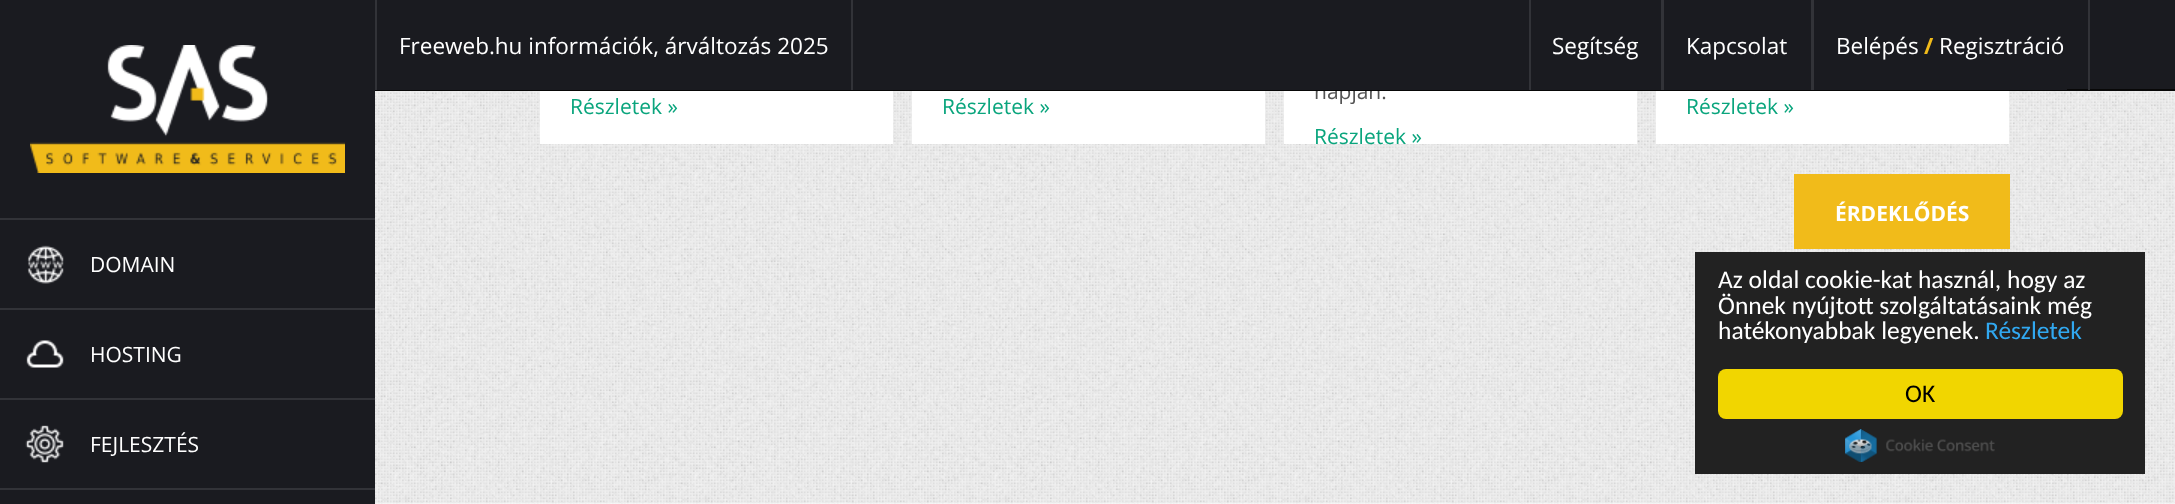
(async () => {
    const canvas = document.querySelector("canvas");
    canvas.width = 2175;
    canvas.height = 504;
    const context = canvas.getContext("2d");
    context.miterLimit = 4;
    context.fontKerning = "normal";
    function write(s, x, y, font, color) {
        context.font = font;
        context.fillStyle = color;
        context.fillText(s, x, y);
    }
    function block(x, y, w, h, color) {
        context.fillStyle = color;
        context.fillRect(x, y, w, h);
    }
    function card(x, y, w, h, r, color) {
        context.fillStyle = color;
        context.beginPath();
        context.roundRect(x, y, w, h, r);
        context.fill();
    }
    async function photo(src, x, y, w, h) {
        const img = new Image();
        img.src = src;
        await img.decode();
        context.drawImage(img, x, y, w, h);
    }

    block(0, 0, 2175, 504, "rgb(255, 255, 255)");
    await photo("media/1.png", 375, 91, 1800, 413);
    block(2067, 0, 108, 89, "rgb(26, 27, 32)");
    block(1284, 91, 353, 53, "rgb(255, 255, 255)");
    write("napján.", 1314, 99, "21px Open Sans", "rgb(85, 85, 85)");
    block(375, 89, 1800, 2, "rgb(8, 8, 8)");
    block(377, 0, 1690, 90, "rgb(26, 27, 32)");
    block(851, 0, 2, 90, "rgb(50, 51, 56)");
    block(375, 0, 2, 90, "rgb(50, 51, 56)");
    write("Freeweb.hu információk, árváltozás 2025", 399, 54, "22.5px Open Sans", "rgb(255, 255, 255)");
    block(1661, 0, 3, 90, "rgb(50, 51, 56)");
    block(1529, 0, 2, 90, "rgb(50, 51, 56)");
    write("Segítség", 1552, 54, "22.5px Open Sans", "rgb(255, 255, 255)");
    block(1811, 0, 3, 90, "rgb(50, 51, 56)");
    write("Kapcsolat", 1686, 54, "22.5px Open Sans", "rgb(255, 255, 255)");
    block(2088, 0, 2, 90, "rgb(50, 51, 56)");
    write("Belépés", 1836, 54, "22.5px Open Sans", "rgb(255, 255, 255)");
    write("/", 1924, 54, "bold 22.5px Open Sans", "rgb(241, 187, 26)");
    write("Regisztráció", 1939, 54, "22.5px Open Sans", "rgb(255, 255, 255)");
    block(0, 0, 375, 504, "rgb(26, 27, 32)");
    await photo("media/2.png", 30, 45, 315, 128);
    block(0, 218, 375, 2, "rgb(50, 51, 56)");
    await photo("media/3.png", 27, 245, 37, 39);
    write("DOMAIN", 90, 272, "21px Open Sans", "rgb(255, 255, 255)");
    block(0, 308, 375, 2, "rgb(50, 51, 56)");
    await photo("media/4.png", 26, 340, 38, 28);
    write("HOSTING", 90, 362, "21px Open Sans", "rgb(255, 255, 255)");
    block(0, 398, 375, 2, "rgb(50, 51, 56)");
    await photo("media/5.png", 25, 425, 39, 38);
    write("FEJLESZTÉS", 90, 452, "21px Open Sans", "rgb(255, 255, 255)");
    block(0, 488, 375, 2, "rgb(50, 51, 56)");
    block(540, 91, 353, 53, "rgb(255, 255, 255)");
    write("Részletek »", 570, 114, "21px Open Sans", "rgb(10, 165, 125)");
    block(912, 91, 353, 53, "rgb(255, 255, 255)");
    write("Részletek »", 942, 114, "21px Open Sans", "rgb(10, 165, 125)");
    write("Részletek »", 1314, 144, "21px Open Sans", "rgb(10, 165, 125)");
    block(1656, 91, 353, 53, "rgb(255, 255, 255)");
    write("Részletek »", 1686, 114, "21px Open Sans", "rgb(10, 165, 125)");
    block(1794, 174, 216, 75, "rgb(241, 187, 26)");
    write("ÉRDEKLŐDÉS", 1835, 221, "bold 21px Open Sans", "rgb(255, 255, 255)");
    block(1695, 252, 450, 222, "rgb(34, 34, 34)");
    write("Az oldal cookie-kat használ, hogy az", 1718, 288, "25.5px Carlito", "rgb(255, 255, 255)");
    write("Önnek nyújtott szolgáltatásaink még", 1718, 314, "25.5px Carlito", "rgb(255, 255, 255)");
    write("hatékonyabbak legyenek.", 1718, 339, "25.5px Carlito", "rgb(255, 255, 255)");
    write("Részletek", 1985, 339, "25.5px Carlito", "rgb(49, 168, 240)");
    card(1718, 369, 405, 50, 8, "rgb(241, 214, 0)");
    write("OK", 1905, 402, "25.5px Carlito", "rgb(0, 0, 0)");
    await photo("media/6.png", 1845, 429, 150, 33);
})();
